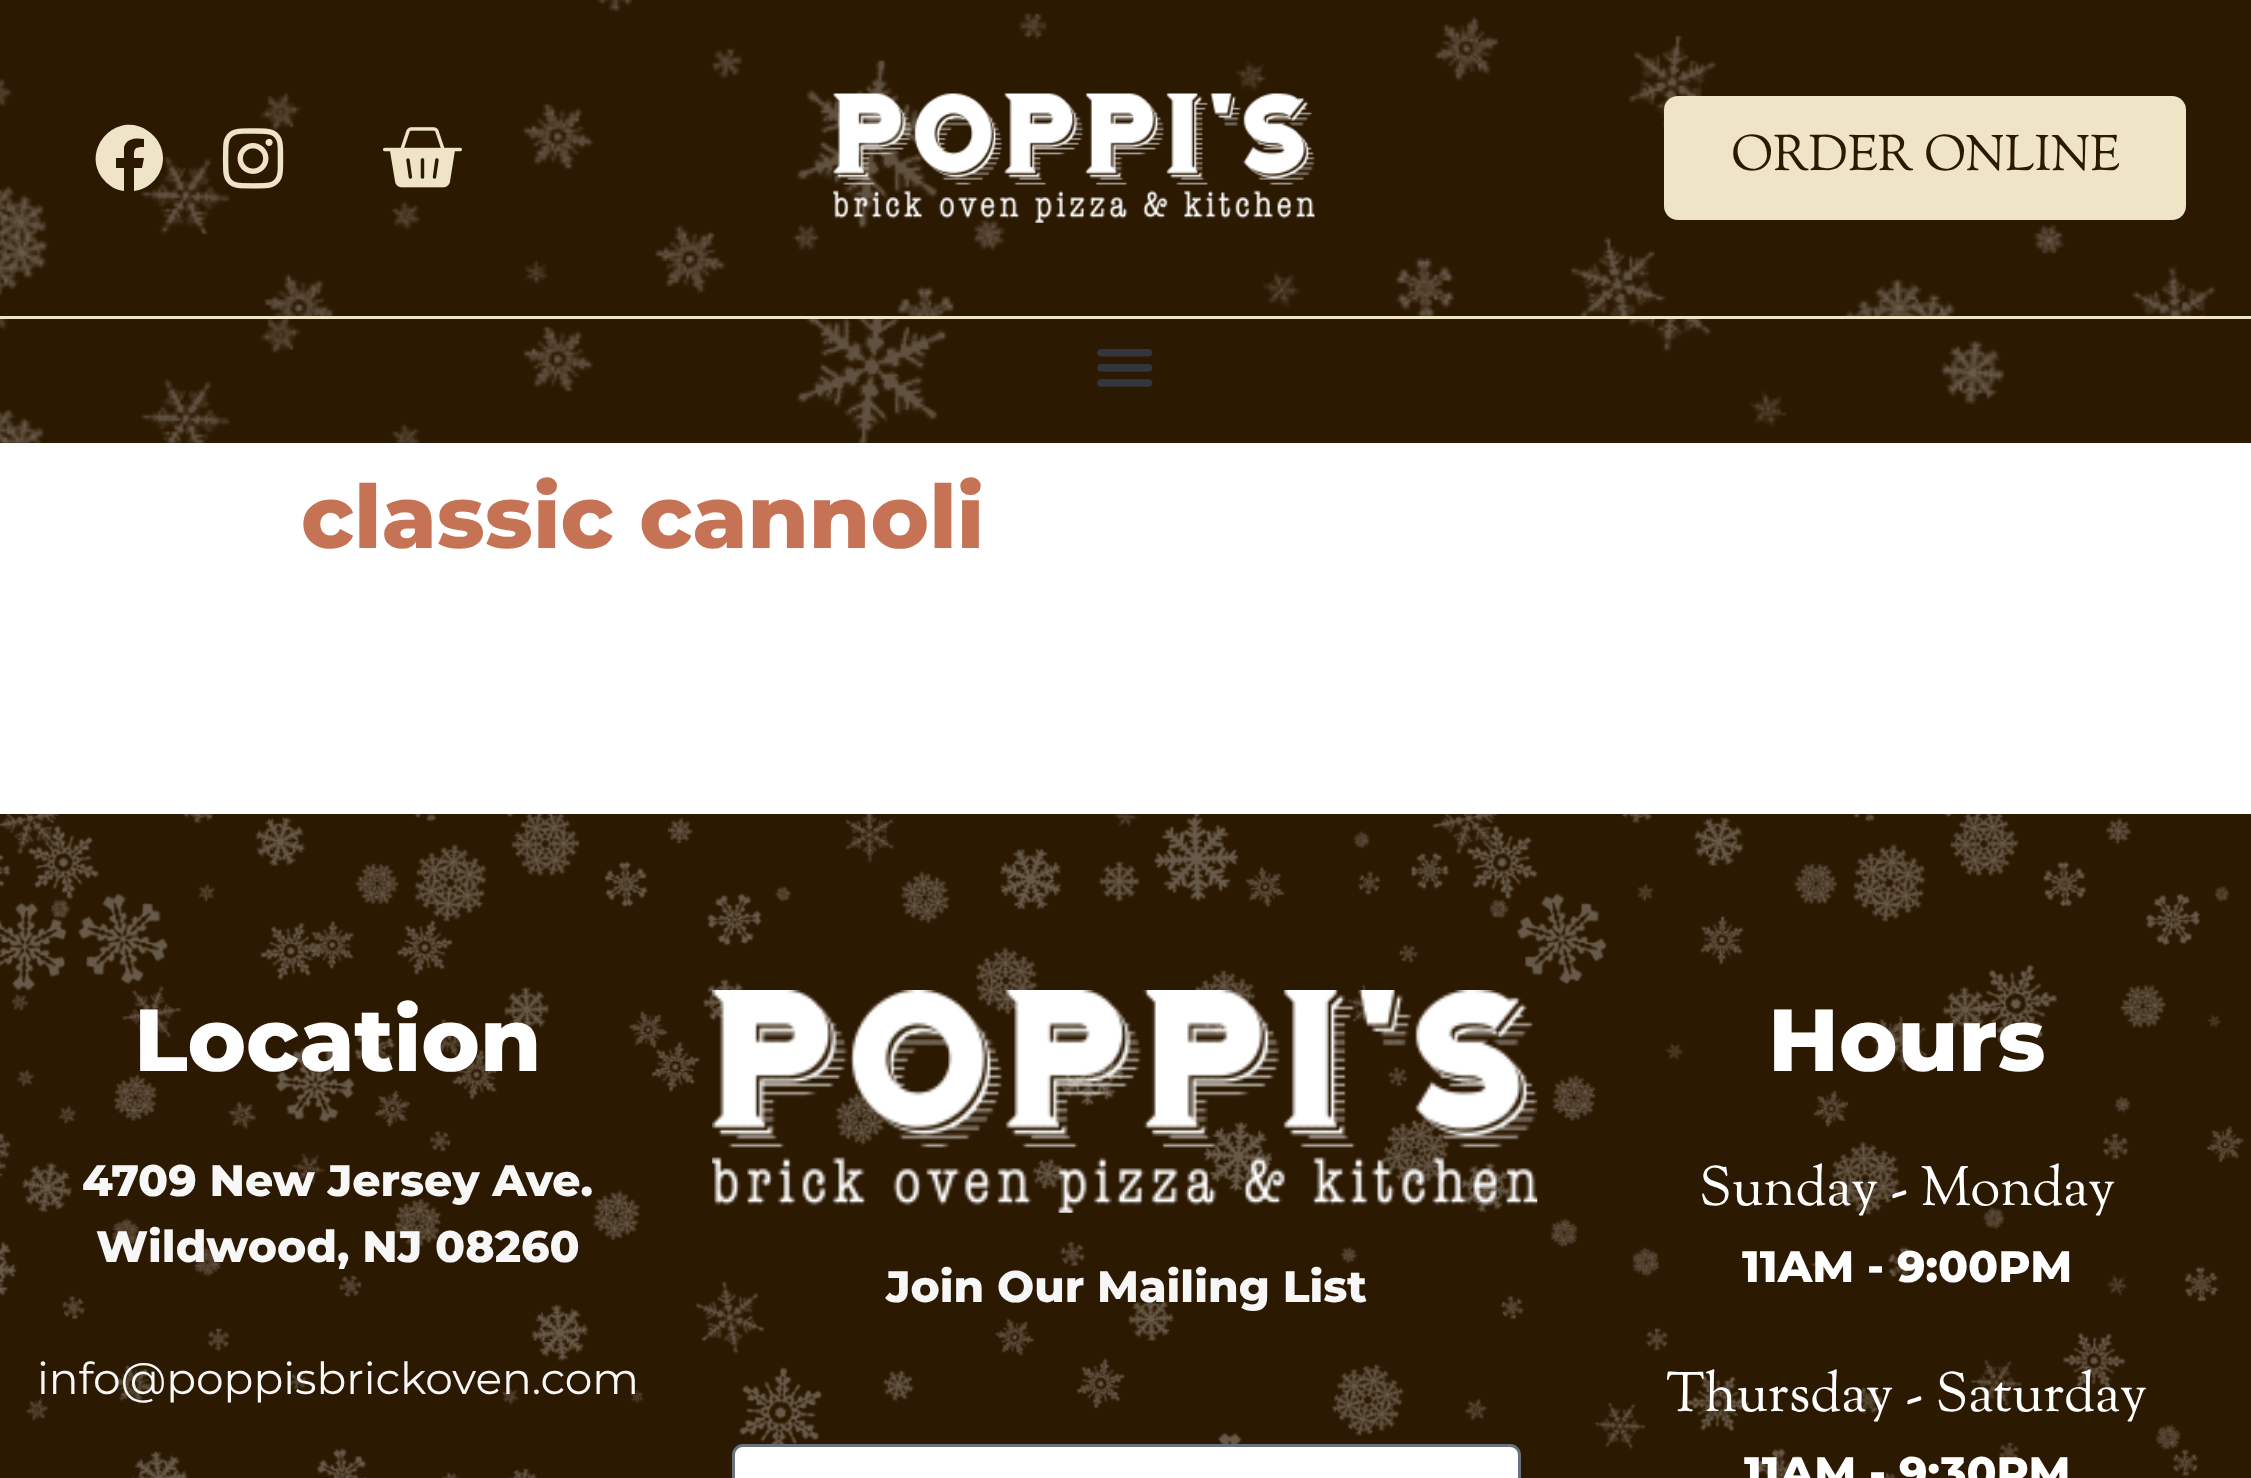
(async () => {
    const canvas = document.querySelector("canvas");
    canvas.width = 2251;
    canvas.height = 1478;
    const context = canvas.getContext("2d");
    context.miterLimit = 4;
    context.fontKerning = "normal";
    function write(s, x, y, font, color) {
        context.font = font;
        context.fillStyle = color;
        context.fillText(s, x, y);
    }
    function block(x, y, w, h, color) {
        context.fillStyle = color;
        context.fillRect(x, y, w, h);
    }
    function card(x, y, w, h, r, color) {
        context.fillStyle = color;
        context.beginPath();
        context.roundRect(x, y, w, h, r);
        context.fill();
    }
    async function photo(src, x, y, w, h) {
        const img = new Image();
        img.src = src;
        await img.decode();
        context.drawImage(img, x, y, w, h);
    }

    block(0, 0, 2251, 1478, "rgb(255, 255, 255)");
    block(0, 0, 2251, 316, "rgb(44, 25, 2)");
    await photo("media/1.png", 0, 0, 2216, 316);
    context.fillStyle = "rgb(239, 228, 198)";
    context.beginPath();
    context.moveTo(163, 158);
    context.bezierCurveTo(163, 175, 150, 189, 134, 191);
    context.lineTo(134, 168);
    context.lineTo(142, 168);
    context.lineTo(144, 158);
    context.lineTo(134, 158);
    context.bezierCurveTo(134, 149, 134, 147, 144, 147);
    context.lineTo(144, 139);
    context.bezierCurveTo(136, 138, 127, 138, 124, 147);
    context.lineTo(124, 158);
    context.lineTo(116, 158);
    context.lineTo(116, 168);
    context.lineTo(124, 168);
    context.lineTo(124, 191);
    context.bezierCurveTo(116, 190, 109, 186, 104, 180);
    context.bezierCurveTo(79, 151, 116, 109, 148, 131);
    context.bezierCurveTo(157, 137, 163, 147, 163, 158);
    context.closePath();
    context.fill();
    await photo("media/2.png", 222, 128, 62, 61);
    await photo("media/3.png", 383, 127, 79, 61);
    await photo("media/4.png", 833, 93, 482, 130);
    card(1664, 96, 522, 124, 14, "rgb(239, 228, 198)");
    write("ORDER ONLINE", 1731, 170, "500 49.5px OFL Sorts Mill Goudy", "rgb(44, 25, 2)");
    block(0, 319, 2251, 124, "rgb(44, 25, 2)");
    await photo("media/5.png", 0, 319, 2005, 124);
    block(0, 316, 2251, 3, "rgb(239, 228, 198)");
    await photo("media/6.png", 1097, 349, 56, 38);
    write("classic cannoli", 301, 548, "800 88px Montserrat", "rgb(197, 114, 85)");
    block(0, 814, 2251, 664, "rgb(44, 25, 2)");
    await photo("media/7.png", 0, 814, 2244, 664);
    write("Location", 134, 1071, "800 88px Montserrat", "rgb(255, 255, 255)");
    write("4709 New Jersey Ave.", 82, 1196, "800 44px Montserrat", "rgb(247, 247, 247)");
    write("Wildwood, NJ 08260", 96, 1262, "800 44px Montserrat", "rgb(247, 247, 247)");
    write("info@poppisbrickoven.com", 37, 1394, "44px Montserrat", "rgb(247, 247, 247)");
    await photo("media/8.png", 712, 990, 826, 223);
    write("Join Our Mailing List", 886, 1302, "800 44px Montserrat", "rgb(247, 247, 247)");
    context.fillStyle = "rgb(255, 255, 255)";
    context.beginPath();
    context.roundRect(733.5, 1445.5, 786, 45, 9.5);
    context.fill();
    context.strokeStyle = "rgb(105, 114, 125)";
    context.lineWidth = 3;
    context.stroke();
    write("Hours", 1768, 1071, "800 88px Montserrat", "rgb(255, 255, 255)");
    write("Sunday - Monday", 1699, 1205, "500 55px OFL Sorts Mill Goudy", "rgb(255, 255, 255)");
    write("11AM - 9:00PM", 1742, 1282, "800 44px Montserrat", "rgb(255, 255, 255)");
    write("Thursday - Saturday", 1666, 1411, "500 55px OFL Sorts Mill Goudy", "rgb(255, 255, 255)");
    write("11AM - 9:30PM", 1744, 1488, "800 44px Montserrat", "rgb(255, 255, 255)");
})();
